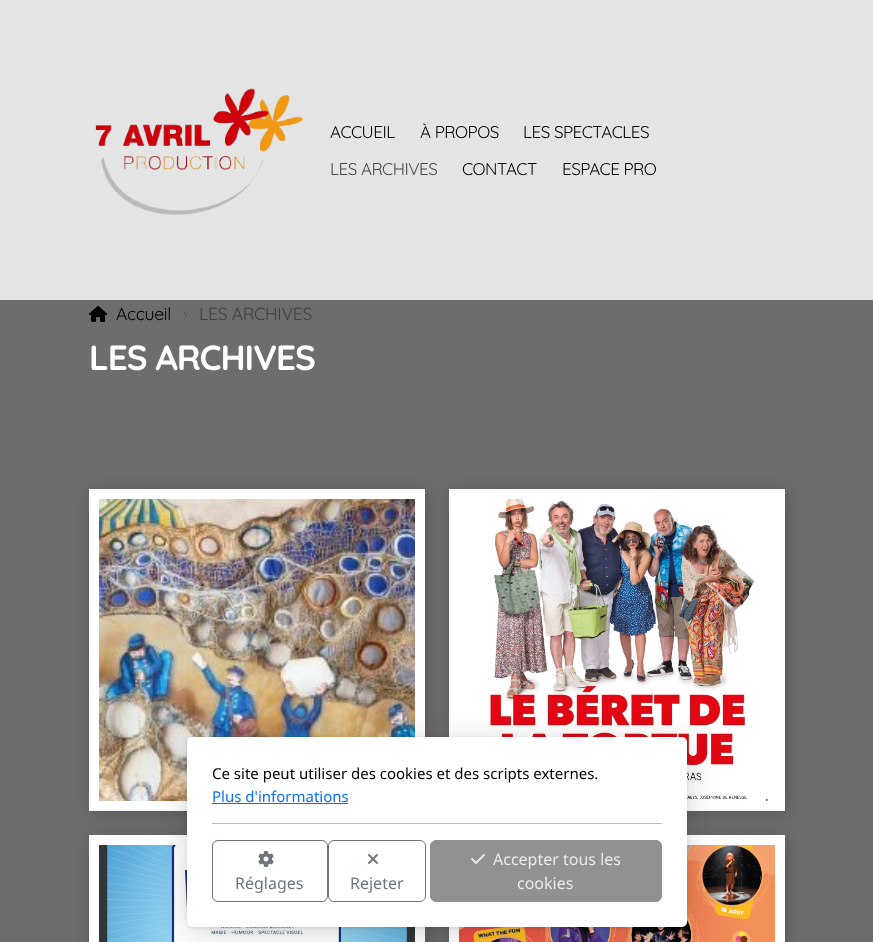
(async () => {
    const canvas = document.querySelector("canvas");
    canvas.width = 873;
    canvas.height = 942;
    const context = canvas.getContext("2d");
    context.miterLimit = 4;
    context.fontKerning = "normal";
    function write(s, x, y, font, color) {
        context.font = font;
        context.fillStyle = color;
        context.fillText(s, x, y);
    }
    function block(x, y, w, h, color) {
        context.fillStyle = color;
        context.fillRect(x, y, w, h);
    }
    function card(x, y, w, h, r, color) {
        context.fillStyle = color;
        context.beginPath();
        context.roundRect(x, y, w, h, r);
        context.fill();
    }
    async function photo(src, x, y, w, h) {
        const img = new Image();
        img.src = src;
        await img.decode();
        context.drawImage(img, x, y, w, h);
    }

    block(0, 0, 873, 942, "rgb(109, 109, 109)");
    block(0, 0, 873, 300, "rgb(228, 228, 228)");
    await photo("media/1.png", 95, 88, 209, 127);
    context.letterSpacing = "-0.5px";
    write("ACCUEIL", 330, 138, "300 17px Quicksand", "rgb(0, 0, 0)");
    write("À PROPOS", 420, 138, "300 17px Quicksand", "rgb(0, 0, 0)");
    write("LES SPECTACLES", 523, 138, "300 17px Quicksand", "rgb(0, 0, 0)");
    write("LES ARCHIVES", 330, 175, "300 17px Quicksand", "rgb(73, 73, 73)");
    write("CONTACT", 462, 175, "300 17px Quicksand", "rgb(0, 0, 0)");
    write("ESPACE PRO", 562, 175, "300 17px Quicksand", "rgb(0, 0, 0)");
    await photo("media/2.png", 89, 306, 18, 16);
    context.letterSpacing = "-0.3px";
    write("Accueil", 116, 320, "300 17.5px Quicksand", "rgb(0, 0, 0)");
    write("›", 183, 320, "300 17.5px Quicksand", "rgb(87, 87, 87)");
    write("LES ARCHIVES", 199, 320, "300 17.5px Quicksand", "rgb(65, 65, 65)");
    context.letterSpacing = "-1px";
    write("LES ARCHIVES", 89, 370, "300 35px 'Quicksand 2'", "rgb(255, 255, 255)");
    context.fillStyle = "rgba(0, 0, 0, 0.2)";
    context.filter = "blur(7.5px)";
    context.beginPath();
    context.rect(91, 491, 336, 322);
    context.fill();
    context.filter = "none";
    await photo("media/3.png", 99, 499, 316, 302);
    context.strokeStyle = "rgb(255, 255, 255)";
    context.lineWidth = 10;
    context.strokeRect(94, 494, 326, 312);
    context.filter = "blur(7.5px)";
    context.beginPath();
    context.rect(451, 491, 336, 322);
    context.fill();
    context.filter = "none";
    block(459, 499, 316, 302, "rgb(255, 255, 255)");
    await photo("media/4.png", 487, 499, 281, 302);
    context.strokeRect(454, 494, 326, 312);
    context.fillStyle = "rgba(0, 0, 0, 0.2)";
    context.filter = "blur(7.5px)";
    context.beginPath();
    context.rect(91, 837, 336, 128);
    context.fill();
    context.filter = "none";
    await photo("media/5.png", 99, 845, 316, 97);
    context.strokeRect(94, 840, 326, 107);
    context.filter = "blur(7.5px)";
    context.beginPath();
    context.rect(451, 837, 336, 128);
    context.fill();
    context.filter = "none";
    await photo("media/6.png", 459, 845, 316, 97);
    context.strokeRect(454, 840, 326, 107);
    context.fillStyle = "rgba(0, 0, 0, 0.16)";
    context.filter = "blur(15px)";
    context.beginPath();
    context.roundRect(187, 742, 500, 190, 5);
    context.fill();
    context.filter = "none";
    context.fillStyle = "rgba(0, 0, 0, 0.1)";
    context.filter = "blur(1.5px)";
    context.beginPath();
    context.roundRect(187, 738, 500, 190, 5);
    context.fill();
    context.filter = "none";
    card(187, 737, 500, 190, 5, "rgb(255, 255, 255)");
    context.letterSpacing = "0px";
    write("Ce site peut utiliser des cookies et des scripts externes.", 212, 779, "15px Noto Sans", "rgb(0, 0, 0)");
    write("Plus d'informations", 212, 802, "15px Noto Sans", "rgb(13, 110, 253)");
    block(212, 803, 136, 1, "rgb(13, 110, 253)");
    block(212, 823, 450, 1, "rgb(191, 191, 191)");
    context.beginPath();
    context.roundRect(212.5, 840.5, 115, 61, 5.5);
    context.strokeStyle = "rgb(108, 117, 125)";
    context.lineWidth = 1;
    context.stroke();
    await photo("media/7.png", 258, 851, 16, 16);
    write("Réglages", 235, 889, "16px Noto Sans", "rgb(108, 117, 125)");
    context.beginPath();
    context.roundRect(328.5, 840.5, 97, 61, 5.5);
    context.stroke();
    await photo("media/8.png", 368, 854, 10, 10);
    write("Rejeter", 350, 889, "16px Noto Sans", "rgb(108, 117, 125)");
    context.fillStyle = "rgb(145, 145, 145)";
    context.beginPath();
    context.roundRect(430.5, 840.5, 231, 61, 5.5);
    context.fill();
    context.strokeStyle = "rgb(145, 145, 145)";
    context.stroke();
    await photo("media/9.png", 471, 854, 14, 10);
    write("Accepter tous les", 493, 865, "16px Noto Sans", "rgb(233, 233, 233)");
    write("cookies", 517, 889, "16px Noto Sans", "rgb(233, 233, 233)");
})();
